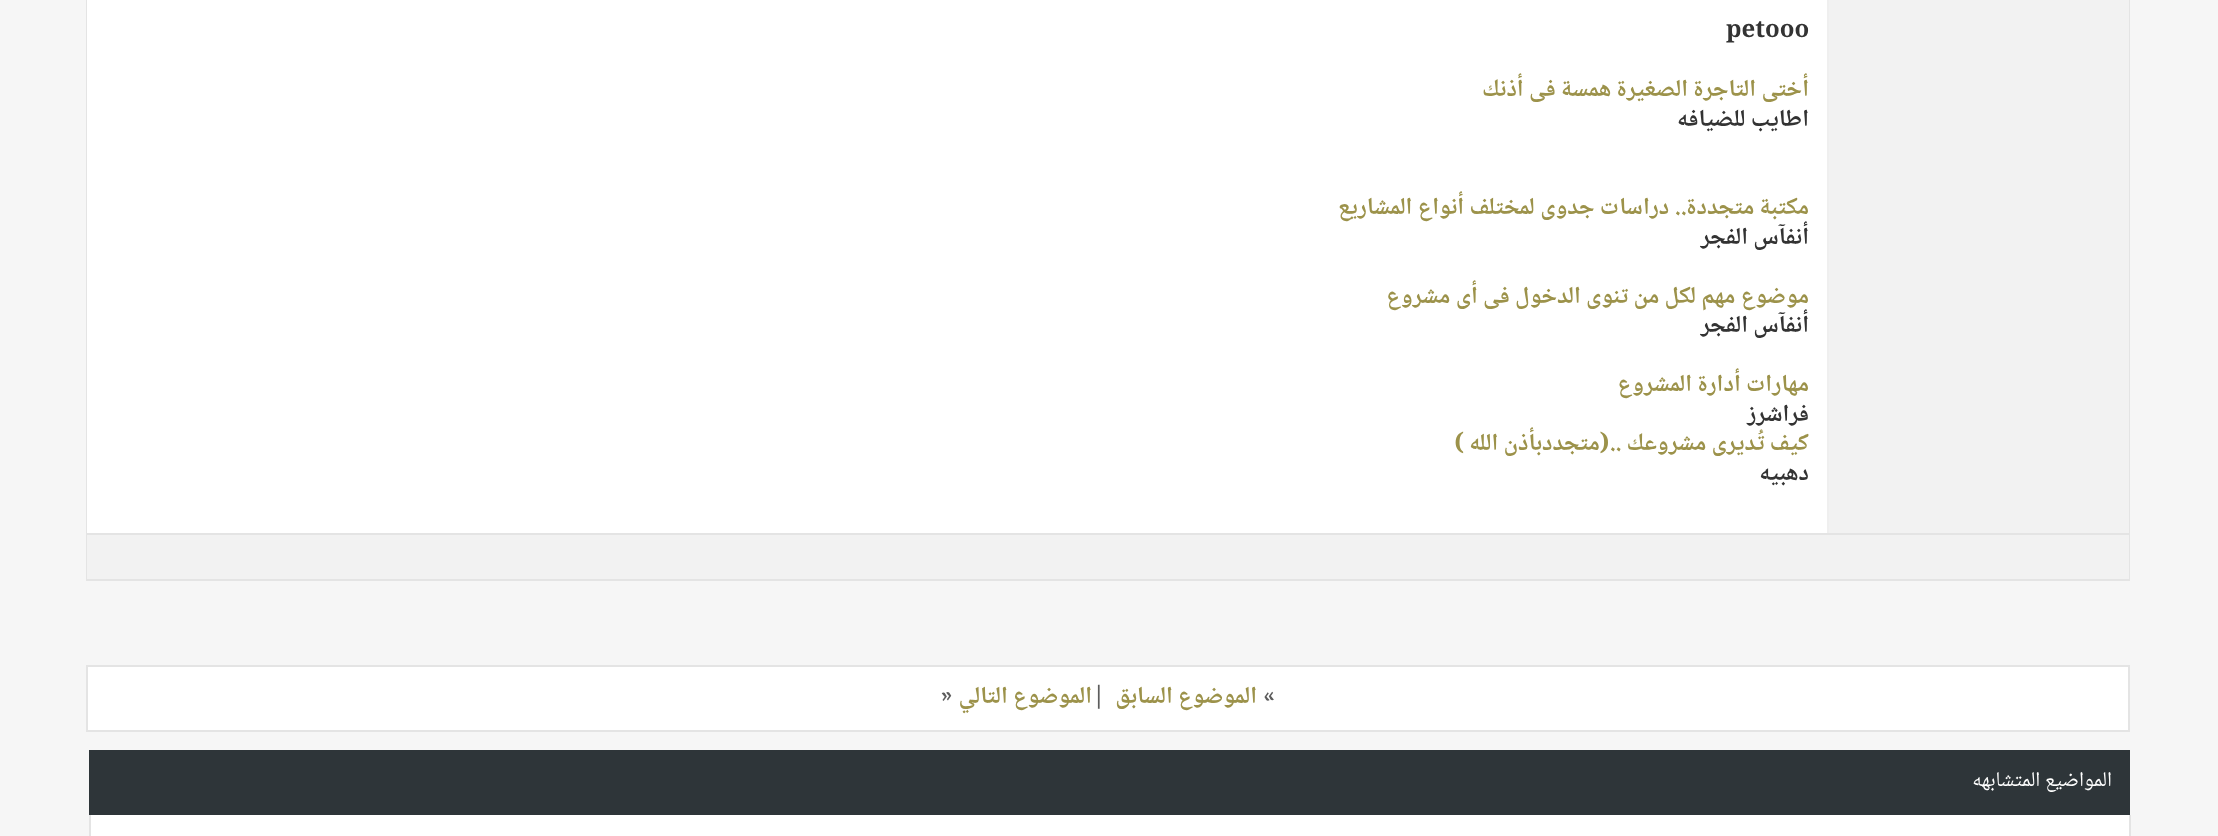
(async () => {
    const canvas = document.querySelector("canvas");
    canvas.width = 2218;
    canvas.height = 836;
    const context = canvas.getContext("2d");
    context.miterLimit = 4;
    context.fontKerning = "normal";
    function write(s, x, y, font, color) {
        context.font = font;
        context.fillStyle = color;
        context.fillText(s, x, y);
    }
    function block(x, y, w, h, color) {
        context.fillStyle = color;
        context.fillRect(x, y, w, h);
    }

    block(0, 0, 2218, 836, "rgb(246, 246, 246)");
    context.strokeStyle = "rgb(228, 228, 228)";
    context.lineWidth = 2;
    context.strokeRect(87, -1, 2042, 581);
    block(1829, 0, 300, 533, "rgb(242, 242, 242)");
    block(87, 0, 1740, 533, "rgb(255, 255, 255)");
    block(1827, 0, 2, 533, "rgb(239, 239, 239)");
    write("petooo", 1726, 37, "bold 24px Noto Naskh Arabic", "rgb(51, 51, 51)");
    context.direction = "rtl";
    write("أختى التاجرة الصغيرة همسة فى أذنك", 1809, 96, "bold 24px Noto Naskh Arabic", "rgb(156, 146, 74)");
    write("اطايب للضيافه", 1809, 126, "bold 24px Noto Naskh Arabic", "rgb(51, 51, 51)");
    write("مكتبة متجددة.. دراسات جدوى لمختلف أنواع المشاريع", 1809, 214, "bold 24px Noto Naskh Arabic", "rgb(156, 146, 74)");
    write("أنفآس الفجر", 1809, 244, "bold 24px Noto Naskh Arabic", "rgb(51, 51, 51)");
    write("موضوع مهم لكل من تنوى الدخول فى أى مشروع", 1809, 303, "bold 24px Noto Naskh Arabic", "rgb(156, 146, 74)");
    write("أنفآس الفجر", 1809, 332, "bold 24px Noto Naskh Arabic", "rgb(51, 51, 51)");
    write("مهارات أدارة المشروع", 1809, 391, "bold 24px Noto Naskh Arabic", "rgb(156, 146, 74)");
    write("فراشرز", 1809, 421, "bold 24px Noto Naskh Arabic", "rgb(51, 51, 51)");
    write("كيف تُديرى مشروعك ..(متجددبأذن الله )", 1809, 450, "bold 24px Noto Naskh Arabic", "rgb(156, 146, 74)");
    write("دهبيه", 1809, 480, "bold 24px Noto Naskh Arabic", "rgb(51, 51, 51)");
    block(87, 535, 2042, 44, "rgb(242, 242, 242)");
    block(87, 533, 2042, 2, "rgb(228, 228, 228)");
    context.fillStyle = "rgb(255, 255, 255)";
    context.beginPath();
    context.rect(87, 666, 2042, 65);
    context.fill();
    context.stroke();
    context.direction = "ltr";
    write("«", 1263, 703, "bold 24px Noto Naskh Arabic", "rgb(93, 93, 93)");
    context.direction = "rtl";
    write("الموضوع السابق", 1257, 703, "bold 24px Noto Naskh Arabic", "rgb(156, 146, 74)");
    context.direction = "ltr";
    write("|", 1092, 703, "bold 24px Noto Naskh Arabic", "rgb(93, 93, 93)");
    context.direction = "rtl";
    write("الموضوع التالي", 1092, 703, "bold 24px Noto Naskh Arabic", "rgb(156, 146, 74)");
    context.direction = "ltr";
    write("»", 941, 703, "bold 24px Noto Naskh Arabic", "rgb(93, 93, 93)");
    block(89, 750, 2041, 65, "rgb(46, 53, 57)");
    context.direction = "rtl";
    write("المواضيع المتشابهه", 2112, 786, "21px Noto Naskh Arabic", "rgb(255, 255, 255)");
    block(91, 815, 2038, 21, "rgb(255, 255, 255)");
    block(2129, 815, 2, 21, "rgb(228, 228, 228)");
    block(89, 815, 2, 21, "rgb(228, 228, 228)");
})();
